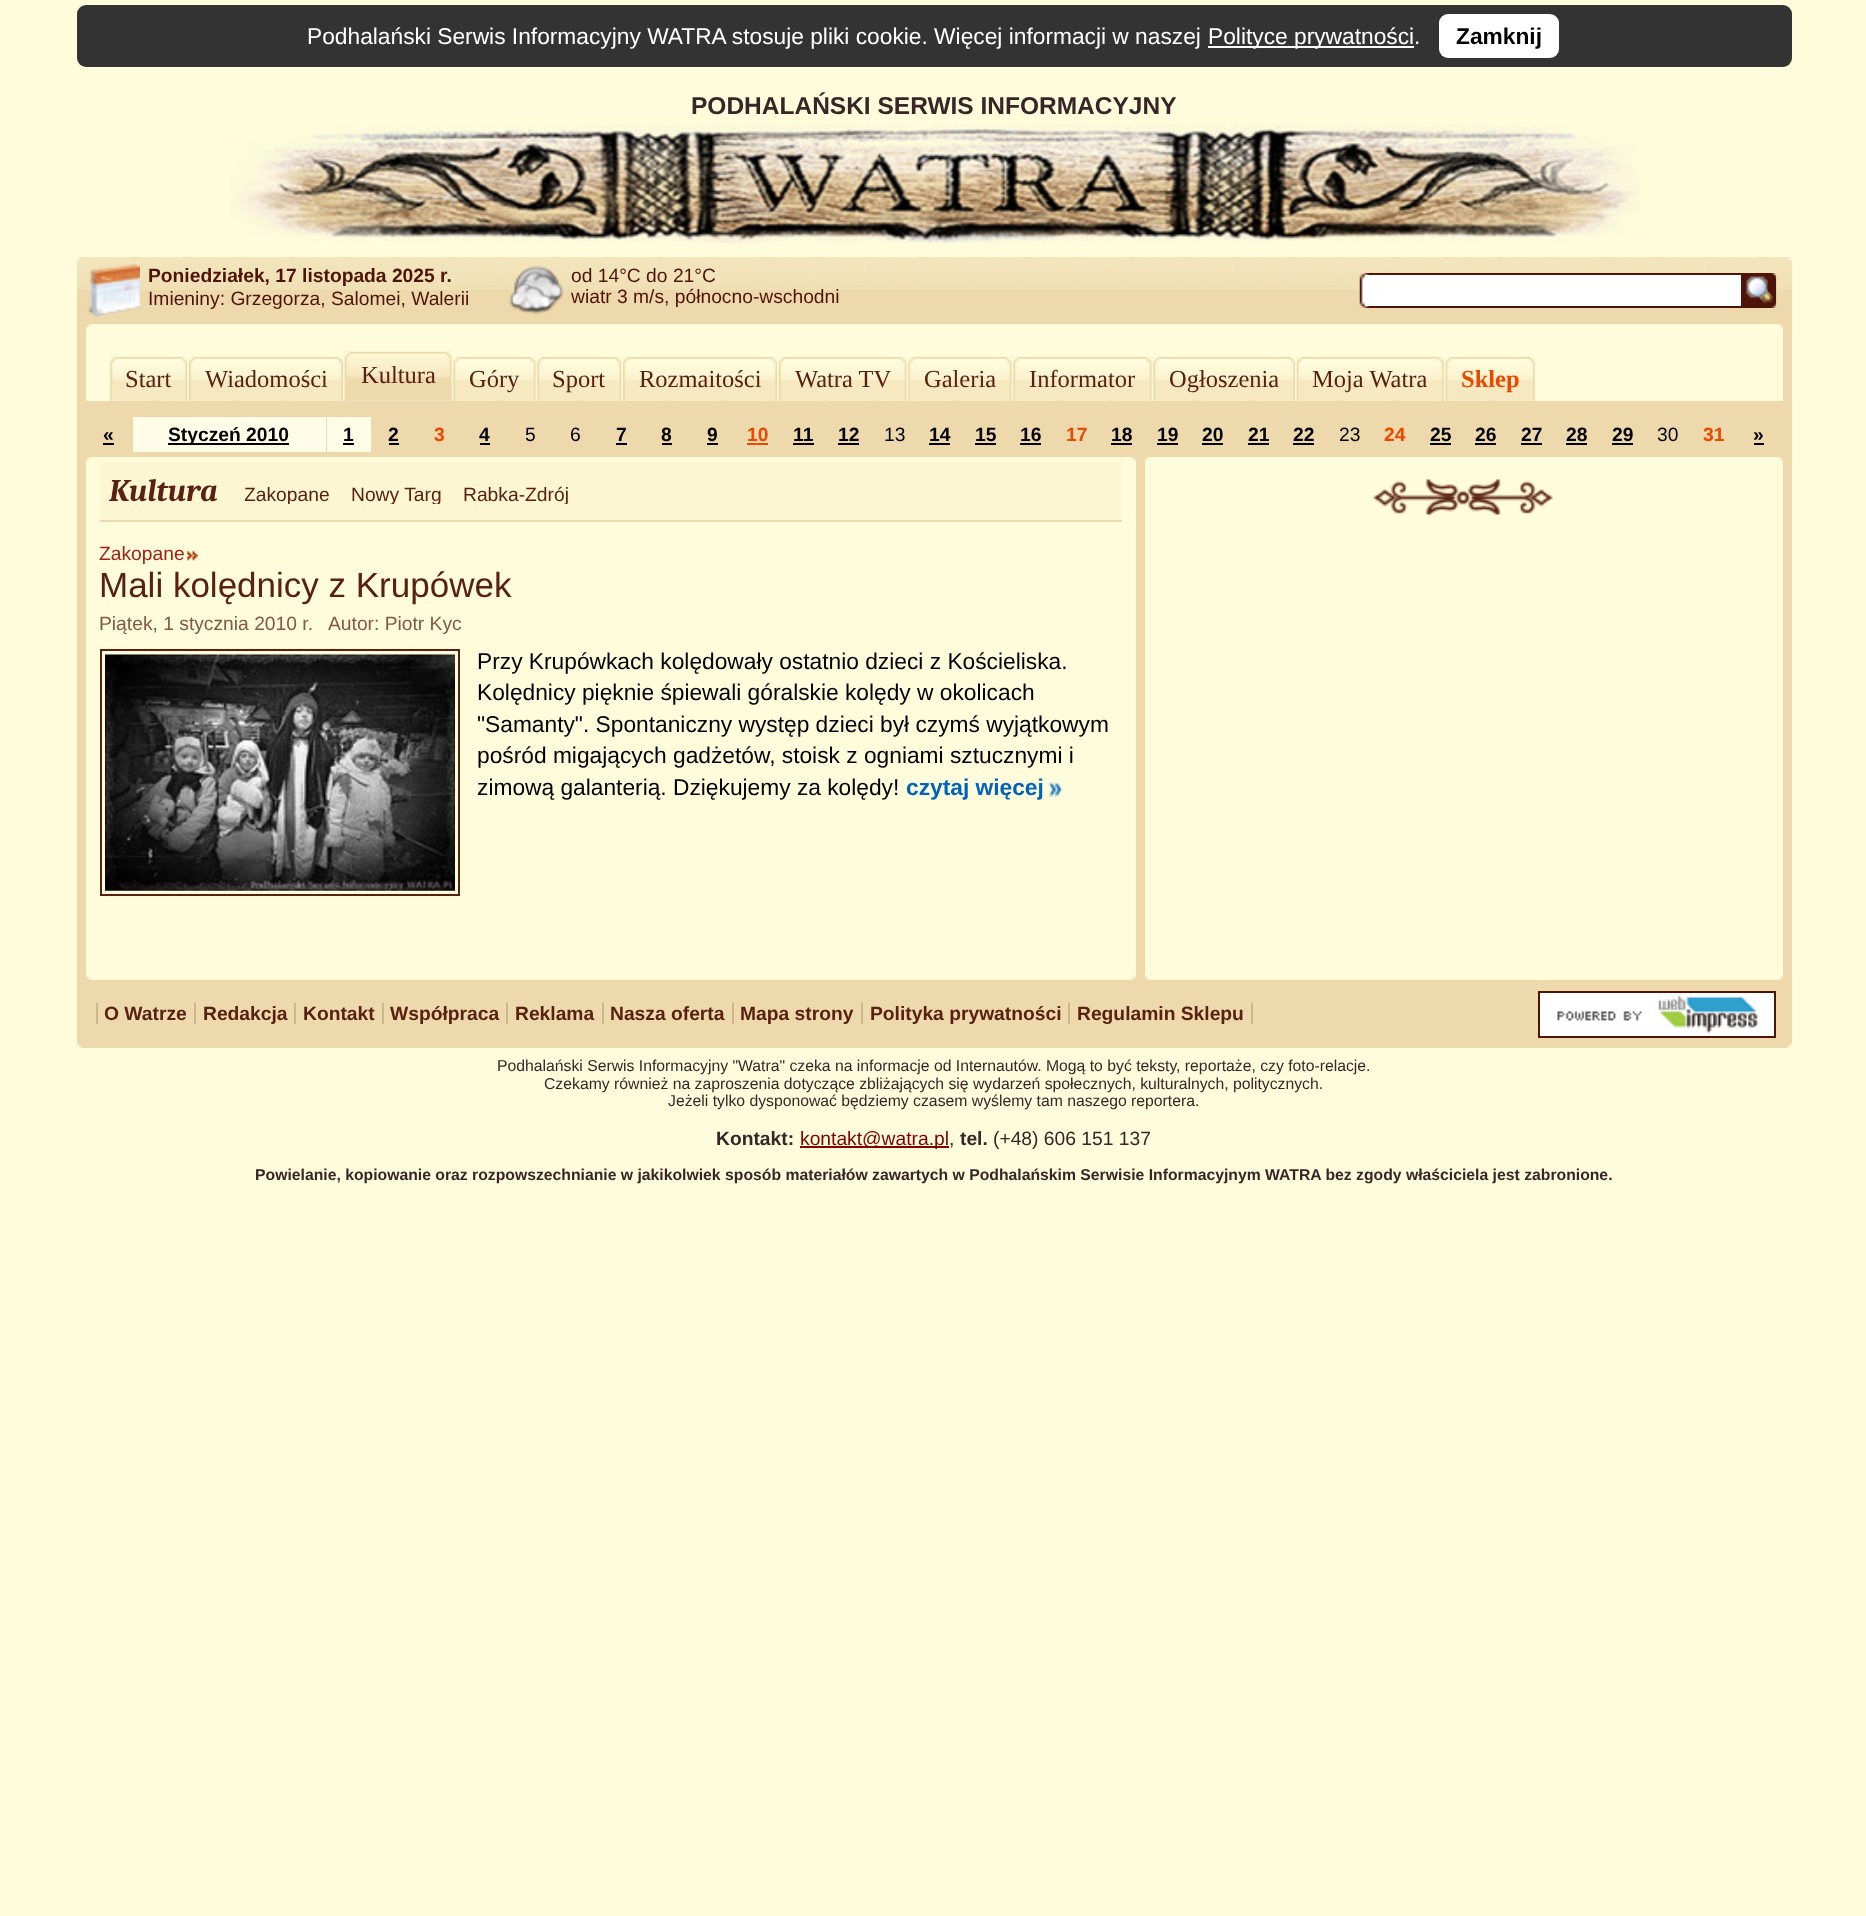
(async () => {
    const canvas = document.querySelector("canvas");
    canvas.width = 1866;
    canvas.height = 1916;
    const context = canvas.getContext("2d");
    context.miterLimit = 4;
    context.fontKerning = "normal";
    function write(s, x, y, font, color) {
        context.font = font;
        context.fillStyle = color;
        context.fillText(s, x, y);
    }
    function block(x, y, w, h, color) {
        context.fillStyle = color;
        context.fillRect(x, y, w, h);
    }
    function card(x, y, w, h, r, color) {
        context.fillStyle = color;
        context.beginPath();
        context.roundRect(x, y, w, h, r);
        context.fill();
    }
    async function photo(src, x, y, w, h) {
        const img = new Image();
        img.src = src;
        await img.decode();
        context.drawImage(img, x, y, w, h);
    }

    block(0, 0, 1866, 1916, "rgb(255, 252, 219)");
    card(77, 5, 1715, 62, 9, "rgb(51, 51, 51)");
    write("Podhalański Serwis Informacyjny WATRA stosuje pliki cookie. Więcej informacji w naszej", 307, 44, "22.75px Liberation Sans", "rgb(255, 255, 255)");
    block(1208, 46, 206, 2, "rgb(255, 255, 255)");
    write("Polityce prywatności.", 1208, 44, "22.75px Liberation Sans", "rgb(255, 255, 255)");
    card(1439, 14, 120, 44, 9, "rgb(255, 255, 255)");
    write("Zamknij", 1456, 44, "bold 22.75px Liberation Sans", "rgb(0, 0, 0)");
    write("PODHALAŃSKI SERWIS INFORMACYJNY", 691, 114, "bold 24.5px Liberation Sans", "rgb(56, 37, 39)");
    await photo("media/1.png", 230, 124, 1410, 120);
    block(77, 257, 1715, 67, "rgb(238, 217, 172)");
    await photo("media/2.png", 82, 257, 1705, 33);
    await photo("media/3.png", 77, 257, 5, 33);
    await photo("media/4.png", 86, 264, 54, 53);
    write("Poniedziałek, 17 listopada 2025 r.", 148, 282, "bold 19.25px Liberation Sans", "rgb(78, 20, 9)");
    write("Imieniny: Grzegorza, Salomei, Walerii", 148, 305, "19.25px Liberation Sans", "rgb(78, 20, 9)");
    await photo("media/5.png", 509, 265, 55, 50);
    write("od 14°C do 21°C", 571, 282, "19.25px Liberation Sans", "rgb(78, 20, 9)");
    write("wiatr 3 m/s, północno-wschodni", 571, 303, "19.25px Liberation Sans", "rgb(78, 20, 9)");
    block(1368, 273, 378, 35, "rgb(78, 20, 9)");
    await photo("media/6.png", 1359, 273, 10, 35);
    block(1365, 275, 376, 31, "rgb(255, 255, 255)");
    await photo("media/7.png", 1746, 273, 31, 35);
    await photo("media/8.png", 1787, 257, 5, 33);
    block(1783, 324, 9, 719, "rgb(238, 217, 172)");
    block(77, 324, 9, 719, "rgb(238, 217, 172)");
    await photo("media/9.png", 85, 324, 6, 5);
    await photo("media/10.png", 1778, 324, 6, 5);
    await photo("media/11.png", 110, 357, 78, 44);
    await photo("media/12.png", 110, 357, 6, 44);
    write("Start", 125, 387, "24.5px Liberation Serif", "rgb(88, 33, 18)");
    await photo("media/13.png", 182, 357, 6, 44);
    await photo("media/14.png", 189, 357, 154, 44);
    await photo("media/15.png", 189, 357, 6, 44);
    write("Wiadomości", 205, 387, "24.5px Liberation Serif", "rgb(88, 33, 18)");
    await photo("media/16.png", 337, 357, 6, 44);
    await photo("media/17.png", 344, 351, 108, 50);
    await photo("media/18.png", 344, 351, 6, 50);
    write("Kultura", 361, 383, "24.5px Liberation Serif", "rgb(88, 33, 18)");
    await photo("media/19.png", 446, 352, 6, 49);
    await photo("media/20.png", 453, 357, 83, 44);
    await photo("media/12.png", 453, 357, 6, 44);
    write("Góry", 469, 387, "24.5px Liberation Serif", "rgb(88, 33, 18)");
    await photo("media/21.png", 530, 357, 6, 44);
    await photo("media/22.png", 537, 357, 85, 44);
    await photo("media/12.png", 537, 357, 6, 44);
    write("Sport", 552, 387, "24.5px Liberation Serif", "rgb(88, 33, 18)");
    await photo("media/23.png", 616, 357, 6, 44);
    await photo("media/24.png", 623, 357, 154, 44);
    await photo("media/15.png", 623, 357, 6, 44);
    write("Rozmaitości", 639, 387, "24.5px Liberation Serif", "rgb(88, 33, 18)");
    await photo("media/16.png", 771, 357, 6, 44);
    await photo("media/25.png", 778, 357, 129, 44);
    await photo("media/26.png", 778, 357, 6, 44);
    write("Watra TV", 795, 387, "24.5px Liberation Serif", "rgb(88, 33, 18)");
    await photo("media/21.png", 901, 357, 6, 44);
    await photo("media/27.png", 908, 357, 104, 44);
    await photo("media/12.png", 908, 357, 6, 44);
    write("Galeria", 924, 387, "24.5px Liberation Serif", "rgb(88, 33, 18)");
    await photo("media/28.png", 1006, 357, 6, 44);
    await photo("media/29.png", 1013, 357, 139, 44);
    await photo("media/12.png", 1013, 357, 6, 44);
    write("Informator", 1029, 387, "24.5px Liberation Serif", "rgb(88, 33, 18)");
    await photo("media/21.png", 1146, 357, 6, 44);
    await photo("media/30.png", 1153, 357, 142, 44);
    await photo("media/12.png", 1153, 357, 6, 44);
    write("Ogłoszenia", 1169, 387, "24.5px Liberation Serif", "rgb(88, 33, 18)");
    await photo("media/31.png", 1289, 357, 6, 44);
    await photo("media/32.png", 1296, 357, 148, 44);
    await photo("media/33.png", 1296, 357, 6, 44);
    write("Moja Watra", 1312, 387, "24.5px Liberation Serif", "rgb(88, 33, 18)");
    await photo("media/34.png", 1438, 357, 6, 44);
    await photo("media/35.png", 1445, 357, 90, 44);
    await photo("media/36.png", 1445, 357, 6, 44);
    write("Sklep", 1461, 387, "bold 24.5px Liberation Serif", "rgb(235, 72, 0)");
    await photo("media/37.png", 1529, 357, 6, 44);
    block(86, 401, 1697, 56, "rgb(238, 217, 172)");
    write("«", 103, 441, "bold 19.25px Liberation Sans", "rgb(0, 0, 0)");
    block(103, 443, 11, 2, "rgb(0, 0, 0)");
    block(133, 417, 193, 35, "rgb(255, 253, 231)");
    block(168, 443, 121, 2, "rgb(0, 0, 0)");
    write("Styczeń 2010", 168, 441, "bold 19.25px Liberation Sans", "rgb(0, 0, 0)");
    block(327, 417, 44, 35, "rgb(255, 253, 231)");
    write("1", 343, 441, "bold 19.25px Liberation Sans", "rgb(0, 0, 0)");
    block(343, 443, 11, 2, "rgb(0, 0, 0)");
    write("2", 388, 441, "bold 19.25px Liberation Sans", "rgb(0, 0, 0)");
    block(389, 443, 10, 2, "rgb(0, 0, 0)");
    write("3", 434, 441, "bold 19.25px Liberation Sans", "rgb(235, 72, 0)");
    write("4", 479, 441, "bold 19.25px Liberation Sans", "rgb(0, 0, 0)");
    block(480, 443, 10, 2, "rgb(0, 0, 0)");
    write("5", 525, 441, "19.25px Liberation Sans", "rgb(0, 0, 0)");
    write("6", 570, 441, "19.25px Liberation Sans", "rgb(0, 0, 0)");
    write("7", 616, 441, "bold 19.25px Liberation Sans", "rgb(0, 0, 0)");
    block(616, 443, 11, 2, "rgb(0, 0, 0)");
    write("8", 661, 441, "bold 19.25px Liberation Sans", "rgb(0, 0, 0)");
    block(662, 443, 10, 2, "rgb(0, 0, 0)");
    write("9", 707, 441, "bold 19.25px Liberation Sans", "rgb(0, 0, 0)");
    block(707, 443, 11, 2, "rgb(0, 0, 0)");
    write("10", 747, 441, "bold 19.25px Liberation Sans", "rgb(235, 72, 0)");
    block(747, 443, 21, 2, "rgb(235, 72, 0)");
    write("11", 793, 441, "bold 19.25px Liberation Sans", "rgb(0, 0, 0)");
    block(793, 443, 21, 2, "rgb(0, 0, 0)");
    write("12", 838, 441, "bold 19.25px Liberation Sans", "rgb(0, 0, 0)");
    block(838, 443, 21, 2, "rgb(0, 0, 0)");
    write("13", 884, 441, "19.25px Liberation Sans", "rgb(0, 0, 0)");
    write("14", 929, 441, "bold 19.25px Liberation Sans", "rgb(0, 0, 0)");
    block(929, 443, 21, 2, "rgb(0, 0, 0)");
    write("15", 975, 441, "bold 19.25px Liberation Sans", "rgb(0, 0, 0)");
    block(975, 443, 21, 2, "rgb(0, 0, 0)");
    write("16", 1020, 441, "bold 19.25px Liberation Sans", "rgb(0, 0, 0)");
    block(1020, 443, 21, 2, "rgb(0, 0, 0)");
    write("17", 1066, 441, "bold 19.25px Liberation Sans", "rgb(235, 72, 0)");
    write("18", 1111, 441, "bold 19.25px Liberation Sans", "rgb(0, 0, 0)");
    block(1111, 443, 21, 2, "rgb(0, 0, 0)");
    write("19", 1157, 441, "bold 19.25px Liberation Sans", "rgb(0, 0, 0)");
    block(1157, 443, 21, 2, "rgb(0, 0, 0)");
    write("20", 1202, 441, "bold 19.25px Liberation Sans", "rgb(0, 0, 0)");
    block(1202, 443, 21, 2, "rgb(0, 0, 0)");
    write("21", 1248, 441, "bold 19.25px Liberation Sans", "rgb(0, 0, 0)");
    block(1248, 443, 21, 2, "rgb(0, 0, 0)");
    write("22", 1293, 441, "bold 19.25px Liberation Sans", "rgb(0, 0, 0)");
    block(1293, 443, 21, 2, "rgb(0, 0, 0)");
    write("23", 1339, 441, "19.25px Liberation Sans", "rgb(0, 0, 0)");
    write("24", 1384, 441, "bold 19.25px Liberation Sans", "rgb(235, 72, 0)");
    write("25", 1430, 441, "bold 19.25px Liberation Sans", "rgb(0, 0, 0)");
    block(1430, 443, 21, 2, "rgb(0, 0, 0)");
    write("26", 1475, 441, "bold 19.25px Liberation Sans", "rgb(0, 0, 0)");
    block(1475, 443, 21, 2, "rgb(0, 0, 0)");
    write("27", 1521, 441, "bold 19.25px Liberation Sans", "rgb(0, 0, 0)");
    block(1521, 443, 21, 2, "rgb(0, 0, 0)");
    write("28", 1566, 441, "bold 19.25px Liberation Sans", "rgb(0, 0, 0)");
    block(1566, 443, 21, 2, "rgb(0, 0, 0)");
    write("29", 1612, 441, "bold 19.25px Liberation Sans", "rgb(0, 0, 0)");
    block(1612, 443, 21, 2, "rgb(0, 0, 0)");
    write("30", 1657, 441, "19.25px Liberation Sans", "rgb(0, 0, 0)");
    write("31", 1703, 441, "bold 19.25px Liberation Sans", "rgb(235, 72, 0)");
    write("»", 1753, 441, "bold 19.25px Liberation Sans", "rgb(0, 0, 0)");
    block(1754, 443, 10, 2, "rgb(0, 0, 0)");
    block(1136, 457, 9, 523, "rgb(238, 217, 172)");
    await photo("media/38.png", 1144, 456, 6, 6);
    await photo("media/39.png", 1778, 456, 6, 6);
    await photo("media/40.png", 1373, 479, 180, 36);
    await photo("media/41.png", 85, 975, 6, 5);
    await photo("media/42.png", 1130, 975, 6, 5);
    await photo("media/43.png", 1144, 974, 6, 6);
    await photo("media/44.png", 1778, 975, 6, 5);
    await photo("media/45.png", 85, 456, 6, 6);
    await photo("media/46.png", 1130, 456, 6, 6);
    block(100, 462, 1022, 58, "rgb(253, 246, 211)");
    block(100, 520, 1022, 2, "rgb(238, 217, 172)");
    write("Kultura", 109, 501, "italic bold 31.5px Caladea", "rgb(88, 33, 18)");
    context.save();
    context.beginPath();
    context.rect(245, 483, 345, 21);
    context.clip();
    write("Zakopane", 244, 501, "19.25px Liberation Sans", "rgb(88, 33, 18)");
    write("Nowy Targ", 351, 501, "19.25px Liberation Sans", "rgb(88, 33, 18)");
    write("Rabka-Zdrój", 463, 501, "19.25px Liberation Sans", "rgb(88, 33, 18)");
    context.restore();
    write("Zakopane", 99, 560, "19.25px Liberation Sans", "rgb(161, 34, 27)");
    await photo("media/47.png", 186, 550, 12, 11);
    write("Mali kolędnicy z Krupówek", 99, 597, "35px Liberation Sans", "rgb(88, 33, 18)");
    write("Piątek, 1 stycznia 2010 r.   Autor: Piotr Kyc", 99, 630, "19.25px Liberation Sans", "rgb(130, 88, 68)");
    context.strokeStyle = "rgb(88, 33, 18)";
    context.lineWidth = 2;
    context.strokeRect(101, 650, 358, 245);
    await photo("media/48.png", 105, 654, 350, 237);
    write("Przy Krupówkach kolędowały ostatnio dzieci z Kościeliska.", 477, 669, "22.75px Liberation Sans", "rgb(0, 0, 0)");
    write("Kolędnicy pięknie śpiewali góralskie kolędy w okolicach", 477, 700, "22.75px Liberation Sans", "rgb(0, 0, 0)");
    write("\"Samanty\". Spontaniczny występ dzieci był czymś wyjątkowym", 477, 732, "22.75px Liberation Sans", "rgb(0, 0, 0)");
    write("pośród migających gadżetów, stoisk z ogniami sztucznymi i", 477, 763, "22.75px Liberation Sans", "rgb(0, 0, 0)");
    write("zimową galanterią. Dziękujemy za kolędy!", 477, 795, "22.75px Liberation Sans", "rgb(0, 0, 0)");
    write("czytaj więcej", 906, 795, "bold 22.75px Liberation Sans", "rgb(0, 99, 187)");
    await photo("media/49.png", 1048, 782, 15, 15);
    block(86, 980, 1697, 63, "rgb(238, 217, 172)");
    block(96, 1003, 2, 21, "rgb(203, 182, 139)");
    write("O Watrze", 104, 1020, "bold 19.25px Liberation Sans", "rgb(88, 33, 18)");
    block(194, 1003, 2, 21, "rgb(203, 182, 139)");
    write("Redakcja", 203, 1020, "bold 19.25px Liberation Sans", "rgb(88, 33, 18)");
    block(294, 1003, 2, 21, "rgb(203, 182, 139)");
    write("Kontakt", 303, 1020, "bold 19.25px Liberation Sans", "rgb(88, 33, 18)");
    block(382, 1003, 2, 21, "rgb(203, 182, 139)");
    write("Współpraca", 390, 1020, "bold 19.25px Liberation Sans", "rgb(88, 33, 18)");
    block(506, 1003, 2, 21, "rgb(203, 182, 139)");
    write("Reklama", 515, 1020, "bold 19.25px Liberation Sans", "rgb(88, 33, 18)");
    block(602, 1003, 2, 21, "rgb(203, 182, 139)");
    write("Nasza oferta", 610, 1020, "bold 19.25px Liberation Sans", "rgb(88, 33, 18)");
    block(732, 1003, 2, 21, "rgb(203, 182, 139)");
    write("Mapa strony", 740, 1020, "bold 19.25px Liberation Sans", "rgb(88, 33, 18)");
    block(861, 1003, 2, 21, "rgb(203, 182, 139)");
    write("Polityka prywatności", 870, 1020, "bold 19.25px Liberation Sans", "rgb(88, 33, 18)");
    block(1068, 1003, 2, 21, "rgb(203, 182, 139)");
    write("Regulamin Sklepu", 1077, 1020, "bold 19.25px Liberation Sans", "rgb(88, 33, 18)");
    block(1251, 1003, 2, 21, "rgb(203, 182, 139)");
    context.fillStyle = "rgb(255, 255, 255)";
    context.beginPath();
    context.rect(1539, 992, 236, 45);
    context.fill();
    context.strokeStyle = "rgb(78, 20, 9)";
    context.stroke();
    await photo("media/50.png", 1557, 995, 201, 38);
    block(77, 1043, 1715, 5, "rgb(238, 217, 172)");
    await photo("media/51.png", 77, 1043, 6, 6);
    await photo("media/52.png", 1786, 1043, 6, 6);
    write("Podhalański Serwis Informacyjny \"Watra\" czeka na informacje od Internautów. Mogą to być teksty, reportaże, czy foto-relacje.", 497, 1071, "15.75px Liberation Sans", "rgb(56, 37, 39)");
    write("Czekamy również na zaproszenia dotyczące zbliżających się wydarzeń społecznych, kulturalnych, politycznych.", 544, 1089, "15.75px Liberation Sans", "rgb(56, 37, 39)");
    write("Jeżeli tylko dysponować będziemy czasem wyślemy tam naszego reportera.", 668, 1106, "15.75px Liberation Sans", "rgb(56, 37, 39)");
    write("Kontakt:", 716, 1145, "bold 19.25px Liberation Sans", "rgb(56, 37, 39)");
    block(800, 1146, 149, 2, "rgb(128, 0, 0)");
    write("kontakt@watra.pl", 800, 1145, "19.25px Liberation Sans", "rgb(128, 0, 0)");
    write(",", 949, 1145, "19.25px Liberation Sans", "rgb(56, 37, 39)");
    write("tel.", 960, 1145, "bold 19.25px Liberation Sans", "rgb(56, 37, 39)");
    write("(+48) 606 151 137", 993, 1145, "19.25px Liberation Sans", "rgb(56, 37, 39)");
    write("Powielanie, kopiowanie oraz rozpowszechnianie w jakikolwiek sposób materiałów zawartych w Podhalańskim Serwisie Informacyjnym WATRA bez zgody właściciela jest zabronione.", 255, 1180, "bold 15.75px Liberation Sans", "rgb(56, 37, 39)");
})();
